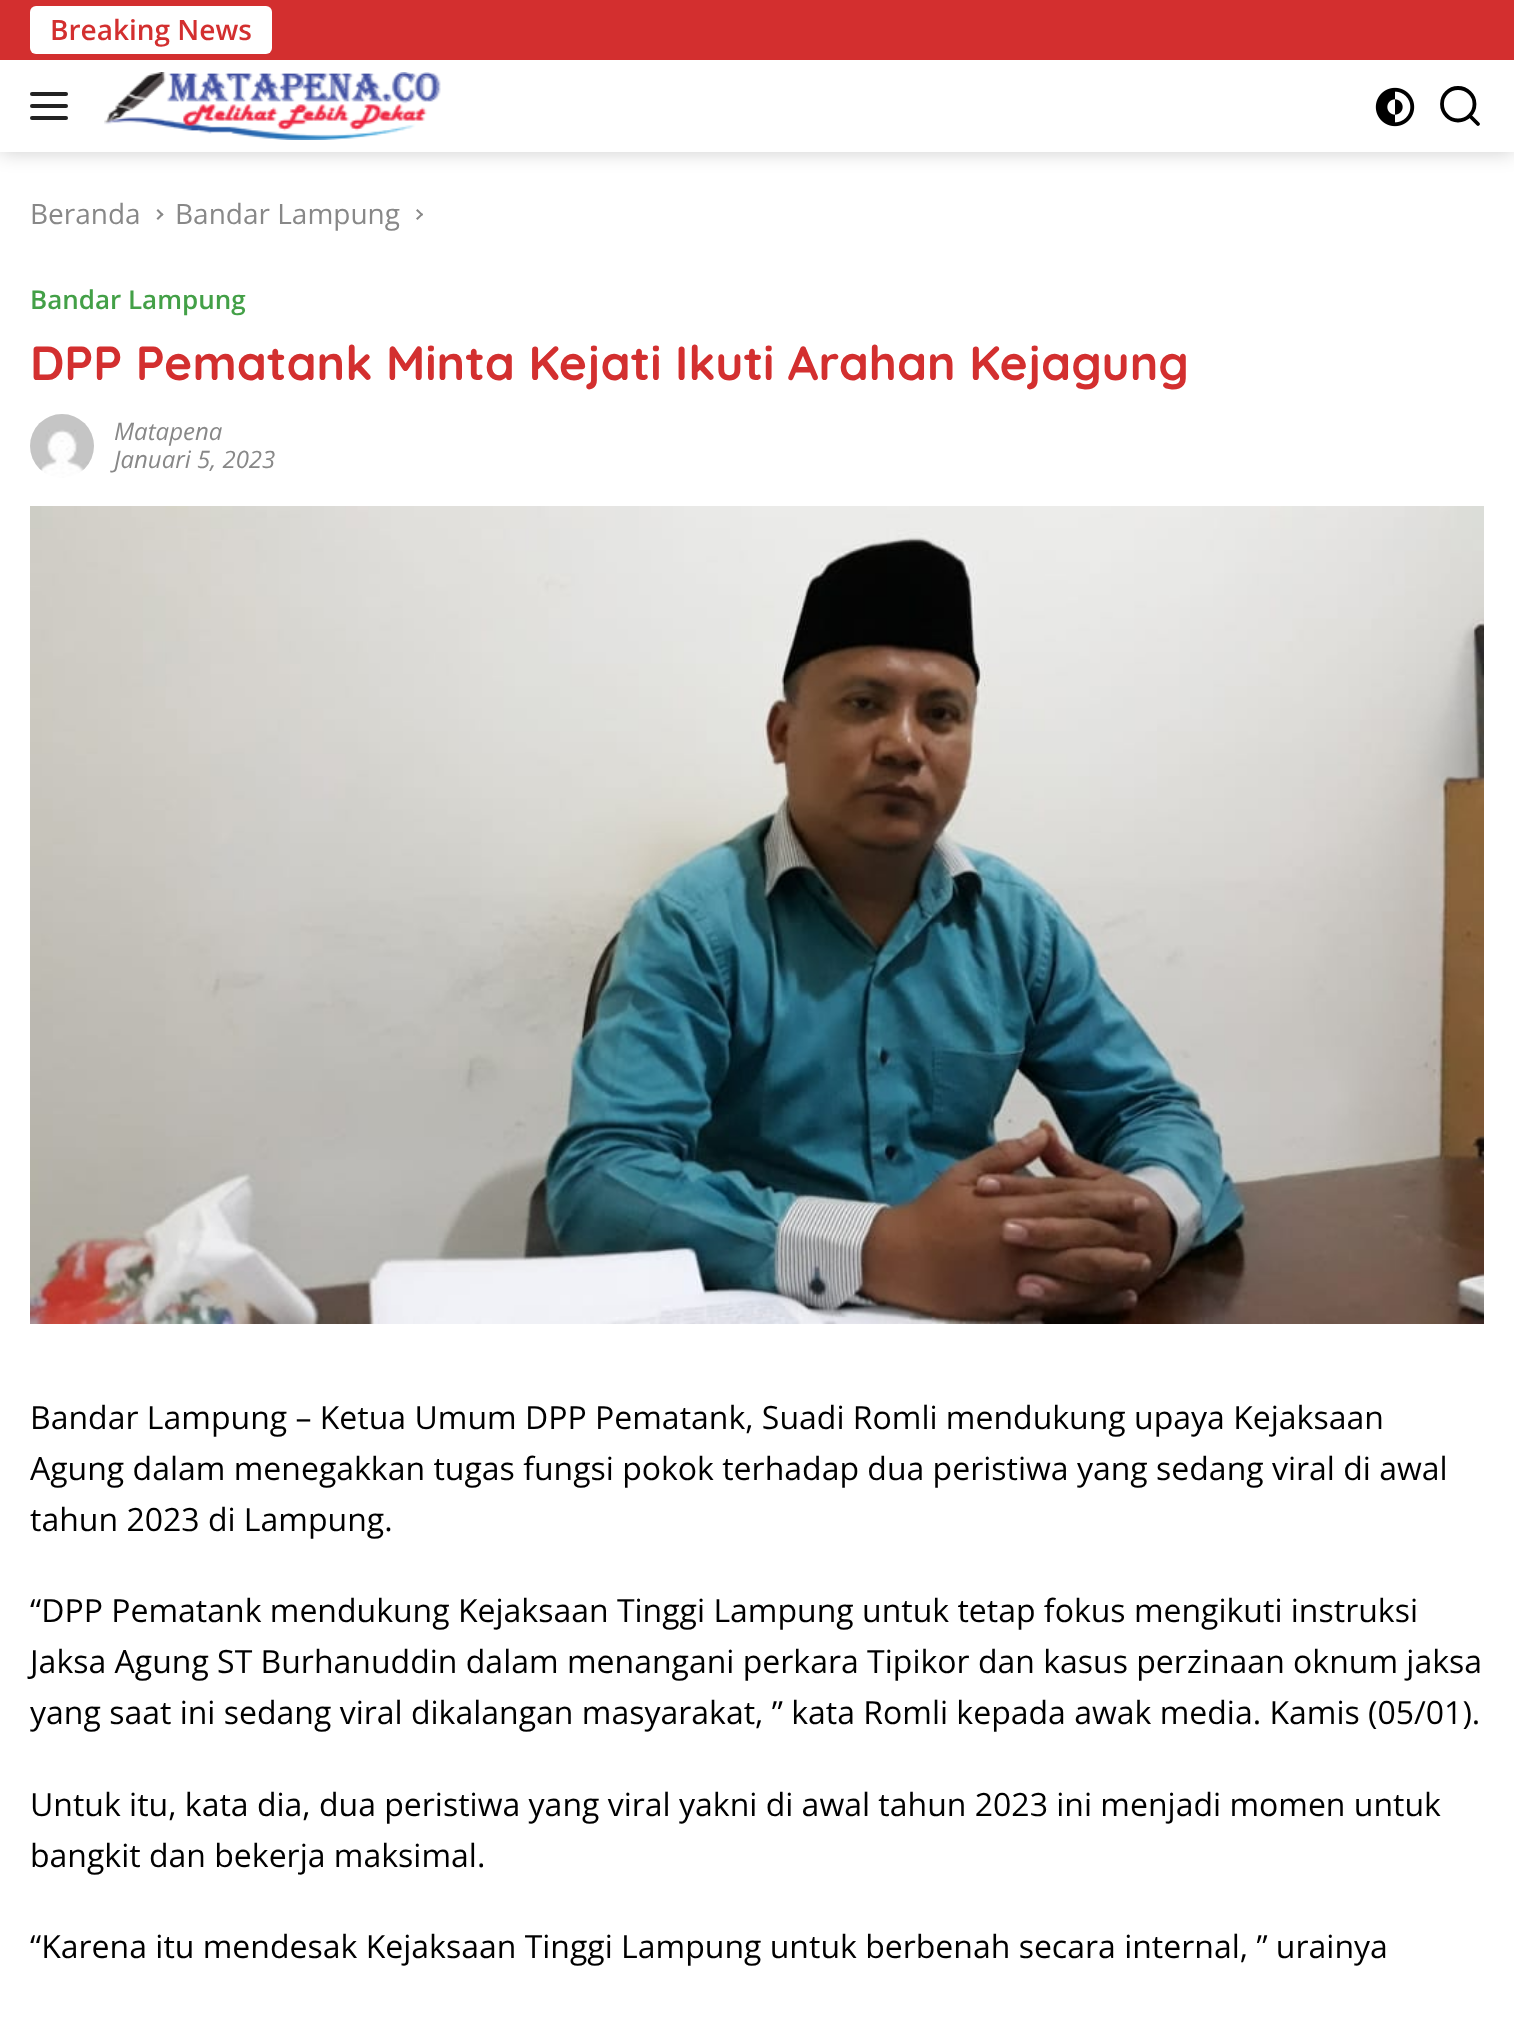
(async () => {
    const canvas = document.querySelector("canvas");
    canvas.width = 1514;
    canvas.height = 2033;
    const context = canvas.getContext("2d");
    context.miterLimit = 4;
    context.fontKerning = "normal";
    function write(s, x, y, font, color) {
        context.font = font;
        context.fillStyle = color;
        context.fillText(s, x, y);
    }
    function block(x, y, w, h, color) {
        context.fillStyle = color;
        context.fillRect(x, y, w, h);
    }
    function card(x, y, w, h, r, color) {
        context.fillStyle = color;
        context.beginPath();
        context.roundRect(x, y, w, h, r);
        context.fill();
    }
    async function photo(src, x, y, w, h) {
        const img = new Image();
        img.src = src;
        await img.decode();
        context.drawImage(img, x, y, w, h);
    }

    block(0, 0, 1514, 2033, "rgb(255, 255, 255)");
    context.fillStyle = "rgba(0, 0, 0, 0.2)";
    context.filter = "blur(10px)";
    context.beginPath();
    context.rect(0, 0, 1514, 152);
    context.fill();
    context.filter = "none";
    block(0, 60, 1514, 92, "rgb(255, 255, 255)");
    block(0, 0, 1514, 60, "rgb(211, 47, 47)");
    card(30, 6, 242, 48, 6, "rgb(255, 255, 255)");
    write("Breaking News", 50, 40, "600 28px Open Sans", "rgb(211, 47, 47)");
    card(30, 92, 38, 4, 2, "rgb(34, 34, 34)");
    card(30, 104, 38, 4, 2, "rgb(34, 34, 34)");
    card(30, 116, 38, 4, 2, "rgb(34, 34, 34)");
    await photo("media/1.png", 104, 72, 337, 68);
    await photo("media/2.png", 1375, 87, 40, 40);
    context.beginPath();
    context.moveTo(1478, 124);
    context.lineTo(1469.5, 115.5);
    context.moveTo(1474.5, 104);
    context.bezierCurveTo(1474.5, 113, 1467, 120.5, 1458, 120.5);
    context.bezierCurveTo(1449, 120.5, 1442, 113, 1442, 104);
    context.bezierCurveTo(1442, 95, 1449, 88, 1458, 88);
    context.bezierCurveTo(1467, 88, 1474.5, 95, 1474.5, 104);
    context.closePath();
    context.strokeStyle = "rgb(0, 0, 0)";
    context.lineWidth = 3.8;
    context.lineCap = "round";
    context.stroke();
    write("Beranda", 30, 224, "28px Open Sans", "rgb(136, 136, 136)");
    context.beginPath();
    context.moveTo(156.5, 210.5);
    context.lineTo(158, 209);
    context.lineTo(163.5, 214.5);
    context.lineTo(162, 216);
    context.closePath();
    context.fill();
    context.beginPath();
    context.moveTo(156.5, 218.5);
    context.lineTo(162, 213);
    context.lineTo(163.5, 214.5);
    context.lineTo(158, 220);
    context.closePath();
    context.fill();
    write("Bandar Lampung", 175, 224, "28px Open Sans", "rgb(136, 136, 136)");
    context.beginPath();
    context.moveTo(416, 210.5);
    context.lineTo(417.5, 209);
    context.lineTo(423, 214.5);
    context.lineTo(422, 216);
    context.closePath();
    context.fill();
    context.beginPath();
    context.moveTo(416, 218.5);
    context.lineTo(422, 213);
    context.lineTo(423, 214.5);
    context.lineTo(417.5, 220);
    context.closePath();
    context.fill();
    write("Bandar Lampung", 30, 309, "600 26px Open Sans", "rgb(67, 160, 71)");
    write("DPP Pematank Minta Kejati Ikuti Arahan Kejagung", 30, 380, "bold 48px Quicksand", "rgb(211, 47, 47)");
    await photo("media/3.png", 30, 414, 64, 64);
    write("Matapena", 114, 440, "italic 24px Open Sans", "rgb(136, 136, 136)");
    write("Januari 5, 2023", 114, 468, "italic 24px Open Sans", "rgb(136, 136, 136)");
    await photo("media/4.png", 30, 506, 1454, 818);
    write("Bandar Lampung – Ketua Umum DPP Pematank, Suadi Romli mendukung upaya Kejaksaan", 30, 1429, "32px Open Sans", "rgb(0, 0, 0)");
    write("Agung dalam menegakkan tugas fungsi pokok terhadap dua peristiwa yang sedang viral di awal", 30, 1480, "32px Open Sans", "rgb(0, 0, 0)");
    write("tahun 2023 di Lampung.", 30, 1531, "32px Open Sans", "rgb(0, 0, 0)");
    write("“DPP Pematank mendukung Kejaksaan Tinggi Lampung untuk tetap fokus mengikuti instruksi", 30, 1622, "32px Open Sans", "rgb(0, 0, 0)");
    write("Jaksa Agung ST Burhanuddin dalam menangani perkara Tipikor dan kasus perzinaan oknum jaksa", 30, 1673, "32px Open Sans", "rgb(0, 0, 0)");
    write("yang saat ini sedang viral dikalangan masyarakat, ” kata Romli kepada awak media. Kamis (05/01).", 30, 1724, "32px Open Sans", "rgb(0, 0, 0)");
    write("Untuk itu, kata dia, dua peristiwa yang viral yakni di awal tahun 2023 ini menjadi momen untuk", 30, 1816, "32px Open Sans", "rgb(0, 0, 0)");
    write("bangkit dan bekerja maksimal.", 30, 1867, "32px Open Sans", "rgb(0, 0, 0)");
    write("“Karena itu mendesak Kejaksaan Tinggi Lampung untuk berbenah secara internal, ” urainya", 30, 1958, "32px Open Sans", "rgb(0, 0, 0)");
})();
